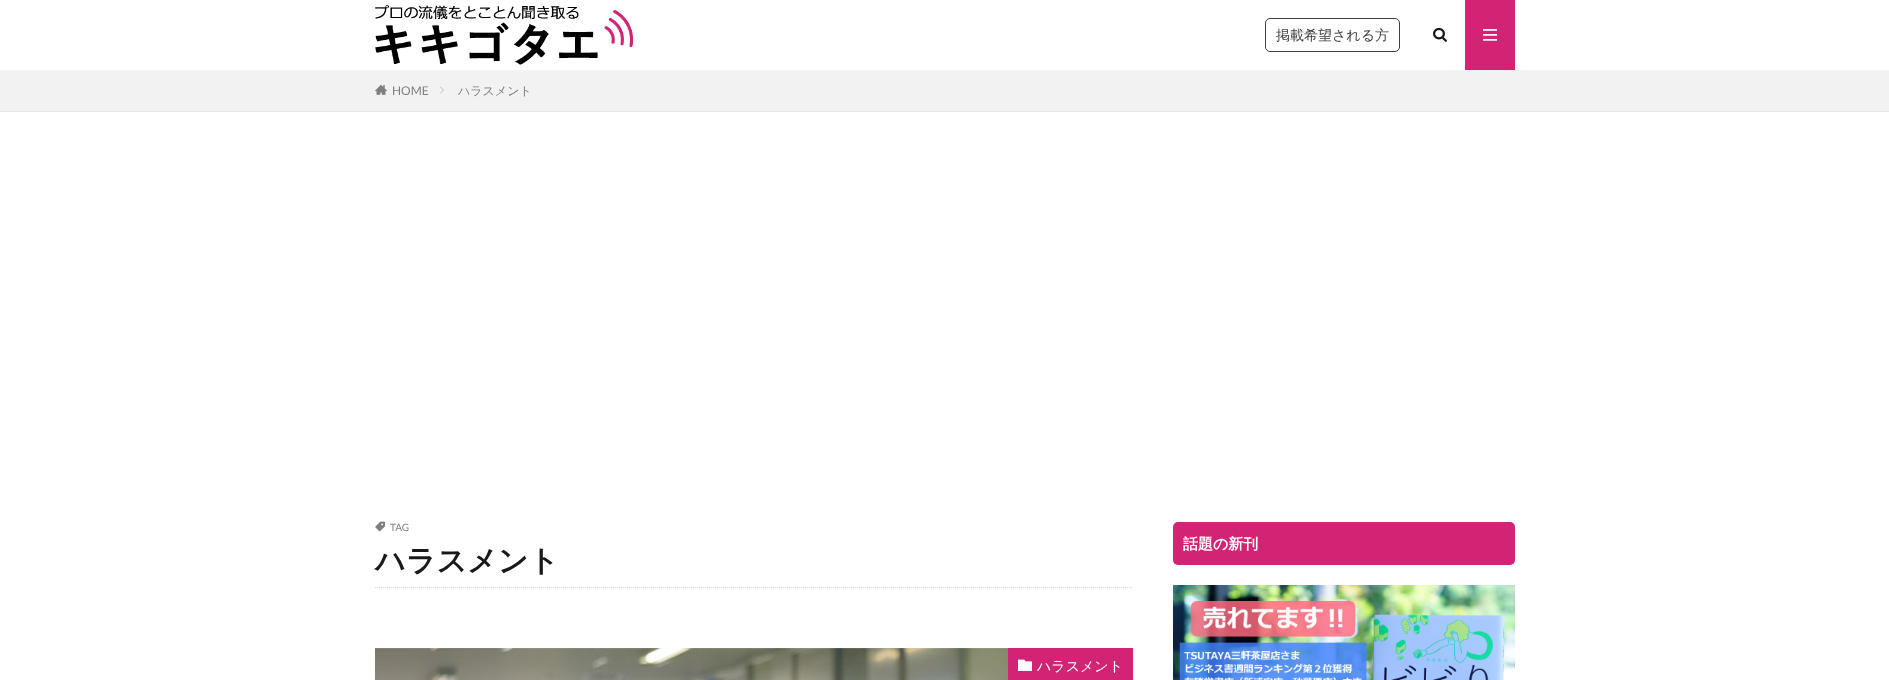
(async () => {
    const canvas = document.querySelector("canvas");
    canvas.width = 1889;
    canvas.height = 680;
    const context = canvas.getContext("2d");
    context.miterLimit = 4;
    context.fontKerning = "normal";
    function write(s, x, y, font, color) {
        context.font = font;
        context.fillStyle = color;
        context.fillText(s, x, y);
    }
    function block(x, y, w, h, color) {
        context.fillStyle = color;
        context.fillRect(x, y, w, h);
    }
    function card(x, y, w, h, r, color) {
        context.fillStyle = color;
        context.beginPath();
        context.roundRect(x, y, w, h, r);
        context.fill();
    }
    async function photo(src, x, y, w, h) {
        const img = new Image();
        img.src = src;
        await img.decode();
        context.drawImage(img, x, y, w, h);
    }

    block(0, 0, 1889, 680, "rgb(255, 255, 255)");
    await photo("media/1.png", 375, 5, 258, 60);
    context.beginPath();
    context.roundRect(1265.5, 18.5, 134, 33, 4.5);
    context.strokeStyle = "rgb(63, 63, 63)";
    context.stroke();
    write("掲載希望される方", 1276, 40, "500 14px WenQuanYi Zen Hei", "rgb(63, 63, 63)");
    await photo("media/2.png", 1433, 27, 14, 15);
    block(1465, 0, 50, 70, "rgb(211, 35, 116)");
    await photo("media/3.png", 1483, 29, 14, 12);
    block(0, 70, 1889, 41, "rgb(242, 242, 242)");
    block(0, 111, 1889, 1, "rgb(230, 230, 230)");
    await photo("media/4.png", 375, 84, 12, 11);
    write("HOME", 392, 95, "12px Lato", "rgb(127, 127, 127)");
    context.fillStyle = "rgb(191, 191, 191)";
    context.beginPath();
    context.moveTo(440.5, 86.5);
    context.lineTo(444, 90);
    context.lineTo(443.5, 90.5);
    context.lineTo(440, 87);
    context.closePath();
    context.fill();
    context.beginPath();
    context.moveTo(443.5, 89.5);
    context.lineTo(444, 90);
    context.lineTo(440.5, 93.5);
    context.lineTo(440, 93);
    context.closePath();
    context.fill();
    write("ハラスメント", 458, 95, "500 12px WenQuanYi Zen Hei", "rgb(127, 127, 127)");
    await photo("media/5.png", 375, 521, 10, 11);
    write("TAG", 390, 531, "10px Lato", "rgb(127, 127, 127)");
    context.beginPath();
    context.moveTo(375, 587.5);
    context.lineTo(1133, 587.5);
    context.strokeStyle = "rgb(216, 216, 216)";
    context.setLineDash([1, 1]);
    context.stroke();
    write("ハラスメント", 375, 571, "bold 30px WenQuanYi Zen Hei", "rgb(25, 25, 25)");
    await photo("media/6.png", 375, 648, 633, 32);
    block(1008, 648, 125, 32, "rgb(211, 35, 116)");
    await photo("media/7.png", 1018, 659, 14, 12);
    write("ハラスメント", 1037, 671, "500 14px WenQuanYi Zen Hei", "rgb(255, 255, 255)");
    card(1173, 522, 342, 43, 5, "rgb(211, 35, 116)");
    write("話題の新刊", 1183, 549, "bold 15px WenQuanYi Zen Hei", "rgb(255, 255, 255)");
    await photo("media/8.png", 1173, 585, 342, 95);
})();
